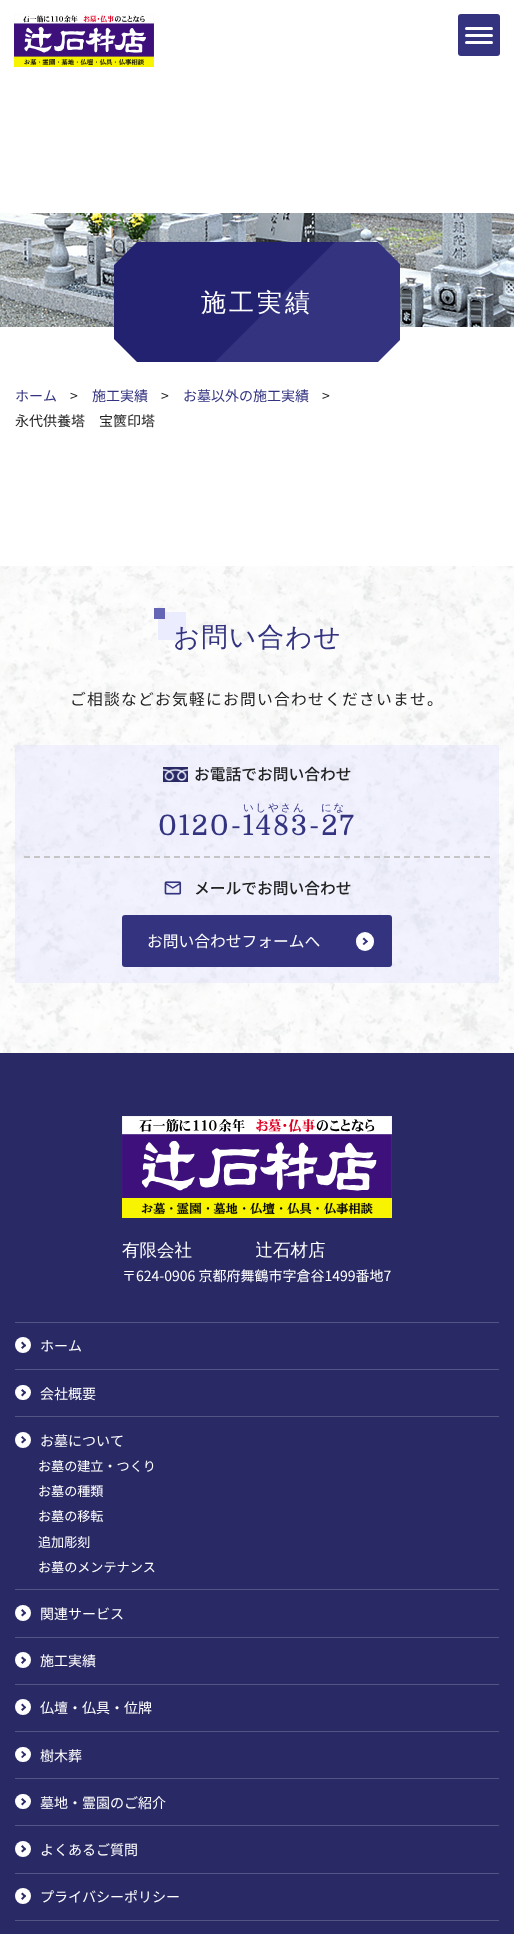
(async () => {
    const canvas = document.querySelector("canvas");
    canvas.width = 514;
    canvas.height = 1934;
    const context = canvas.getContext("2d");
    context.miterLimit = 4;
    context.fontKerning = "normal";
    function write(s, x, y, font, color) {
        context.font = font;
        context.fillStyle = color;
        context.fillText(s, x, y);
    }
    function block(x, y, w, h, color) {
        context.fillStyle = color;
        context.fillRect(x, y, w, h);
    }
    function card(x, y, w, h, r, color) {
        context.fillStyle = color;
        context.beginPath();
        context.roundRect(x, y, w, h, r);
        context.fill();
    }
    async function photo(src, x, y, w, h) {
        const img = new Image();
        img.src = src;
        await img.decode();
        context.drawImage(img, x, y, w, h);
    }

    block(0, 0, 514, 1934, "rgb(255, 255, 255)");
    await photo("media/1.png", 14, 14, 140, 53);
    card(458, 14, 42, 42, 3, "rgb(51, 51, 128)");
    card(465, 27, 28, 3, 1.5, "rgb(255, 255, 255)");
    card(465, 34, 28, 3, 1.5, "rgb(255, 255, 255)");
    card(465, 41, 28, 3, 1.5, "rgb(255, 255, 255)");
    await photo("media/2.png", 0, 213, 514, 114);
    context.save();
    context.beginPath();
    context.rect(114, 242, 286, 120);
    context.clip();
    context.fillStyle = "rgb(51, 51, 128)";
    context.beginPath();
    context.moveTo(378, 242);
    context.lineTo(334, 242);
    context.lineTo(214, 362);
    context.lineTo(378, 362);
    context.lineTo(401, 339);
    context.lineTo(401, 265);
    context.closePath();
    context.fill();
    context.restore();
    context.fillStyle = "rgb(34, 34, 112)";
    context.beginPath();
    context.moveTo(137, 242);
    context.lineTo(114, 265);
    context.lineTo(114, 339);
    context.lineTo(137, 362);
    context.lineTo(215, 362);
    context.lineTo(335, 242);
    context.closePath();
    context.fill();
    context.letterSpacing = "3px";
    write("施工実績", 201, 311, "100 25px Noto Sans", "rgb(255, 255, 255)");
    context.letterSpacing = "0px";
    write("ホーム", 15, 401, "14px Noto Sans JP", "rgb(51, 51, 128)");
    write(">", 70, 401, "14px Noto Sans JP", "rgb(34, 34, 34)");
    write("施工実績", 92, 401, "14px Noto Sans JP", "rgb(51, 51, 128)");
    write(">", 161, 401, "14px Noto Sans JP", "rgb(34, 34, 34)");
    write("お墓以外の施工実績", 183, 401, "14px Noto Sans JP", "rgb(51, 51, 128)");
    write(">", 322, 401, "14px Noto Sans JP", "rgb(34, 34, 34)");
    write("永代供養塔　宝篋印塔", 15, 426, "14px Noto Sans JP", "rgb(34, 34, 34)");
    await photo("media/3.png", 0, 566, 514, 487);
    block(158, 612, 28, 28, "rgb(236, 236, 255)");
    block(154, 608, 11, 11, "rgb(101, 101, 182)");
    context.letterSpacing = "1.25px";
    write("お問い合わせ", 173, 646, "100 26.5px Noto Sans", "rgb(51, 51, 128)");
    write("ご相談などお気軽にお問い合わせくださいませ。", 70, 705, "15.75px Noto Sans JP", "rgb(34, 34, 34)");
    block(15, 745, 484, 238, "rgba(222, 225, 255, 0.4)");
    context.beginPath();
    context.moveTo(24, 857);
    context.lineTo(490, 857);
    context.strokeStyle = "rgb(197, 197, 197)";
    context.lineWidth = 2;
    context.setLineDash([6, 4]);
    context.stroke();
    await photo("media/4.png", 163, 767, 25, 15);
    context.letterSpacing = "0px";
    write("お電話でお問い合わせ", 194, 780, "500 15.75px Noto Sans JP", "rgb(34, 34, 34)");
    context.letterSpacing = "1.75px";
    write("いしやさん", 243, 811, "100 10.5px Noto Sans", "rgb(51, 51, 128)");
    write("にな", 321, 811, "100 10.5px Noto Sans", "rgb(51, 51, 128)");
    write("0120-1483-27", 158, 835, "28px Domine", "rgb(51, 51, 128)");
    await photo("media/5.png", 164, 881, 18, 14);
    context.letterSpacing = "0px";
    write("メールでお問い合わせ", 194, 894, "500 15.75px Noto Sans JP", "rgb(34, 34, 34)");
    card(122, 915, 270, 52, 3, "rgb(51, 51, 128)");
    write("お問い合わせフォームへ", 147, 947, "15.75px Noto Sans JP", "rgb(255, 255, 255)");
    card(356, 932, 18, 19, 9, "rgb(255, 255, 255)");
    context.fillStyle = "rgb(51, 51, 128)";
    context.beginPath();
    context.moveTo(364, 937.5);
    context.lineTo(368, 941.5);
    context.lineTo(366.5, 942.5);
    context.lineTo(362.5, 939);
    context.closePath();
    context.fill();
    context.beginPath();
    context.moveTo(366.5, 940);
    context.lineTo(368, 941.5);
    context.lineTo(364, 945);
    context.lineTo(362.5, 944);
    context.closePath();
    context.fill();
    block(0, 1053, 514, 881, "rgb(41, 41, 102)");
    await photo("media/6.png", 122, 1116, 270, 102);
    context.wordSpacing = "59px";
    write("有限会社 辻石材店", 122, 1256, "100 17.5px Noto Sans", "rgb(255, 255, 255)");
    context.wordSpacing = "0px";
    write("〒624-0906 京都府舞鶴市字倉谷1499番地7", 122, 1281, "14px Noto Sans JP", "rgb(255, 255, 255)");
    block(15, 1322, 484, 1, "rgb(84, 84, 133)");
    context.fillStyle = "rgb(255, 255, 255)";
    context.beginPath();
    context.arc(23, 1345, 8, 0, Math.PI * 2);
    context.fill();
    write("ホーム", 40, 1351, "14px Noto Sans JP", "rgb(255, 255, 255)");
    context.fillStyle = "rgb(41, 41, 102)";
    context.beginPath();
    context.moveTo(22.5, 1341.5);
    context.lineTo(26, 1345.5);
    context.lineTo(25, 1347);
    context.lineTo(21, 1343);
    context.closePath();
    context.fill();
    context.beginPath();
    context.moveTo(25, 1344);
    context.lineTo(26, 1345.5);
    context.lineTo(22.5, 1349);
    context.lineTo(21, 1347.5);
    context.closePath();
    context.fill();
    block(15, 1369, 484, 1, "rgb(84, 84, 133)");
    card(15, 1385, 16, 15, 7.5, "rgb(255, 255, 255)");
    write("会社概要", 40, 1399, "14px Noto Sans JP", "rgb(255, 255, 255)");
    context.fillStyle = "rgb(41, 41, 102)";
    context.beginPath();
    context.moveTo(22.5, 1389);
    context.lineTo(26, 1392.5);
    context.lineTo(25, 1394);
    context.lineTo(21, 1390.5);
    context.closePath();
    context.fill();
    context.beginPath();
    context.moveTo(25, 1391);
    context.lineTo(26, 1392.5);
    context.lineTo(22.5, 1396.5);
    context.lineTo(21, 1395);
    context.closePath();
    context.fill();
    block(15, 1416, 484, 1, "rgb(84, 84, 133)");
    context.fillStyle = "rgb(255, 255, 255)";
    context.beginPath();
    context.arc(23, 1440, 8, 0, Math.PI * 2);
    context.fill();
    write("お墓について", 40, 1446, "14px Noto Sans JP", "rgb(255, 255, 255)");
    context.fillStyle = "rgb(41, 41, 102)";
    context.beginPath();
    context.moveTo(22.5, 1436);
    context.lineTo(26, 1440);
    context.lineTo(25, 1441);
    context.lineTo(21, 1437.5);
    context.closePath();
    context.fill();
    context.beginPath();
    context.moveTo(25, 1438.5);
    context.lineTo(26, 1440);
    context.lineTo(22.5, 1443.5);
    context.lineTo(21, 1442);
    context.closePath();
    context.fill();
    write("お墓の建立・つくり", 38, 1471, "13.1px Noto Sans JP", "rgb(255, 255, 255)");
    write("お墓の種類", 38, 1496, "13.1px Noto Sans JP", "rgb(255, 255, 255)");
    write("お墓の移転", 38, 1521, "13.1px Noto Sans JP", "rgb(255, 255, 255)");
    write("追加彫刻", 38, 1547, "13.1px Noto Sans JP", "rgb(255, 255, 255)");
    write("お墓のメンテナンス", 38, 1572, "13.1px Noto Sans JP", "rgb(255, 255, 255)");
    block(15, 1589, 484, 1, "rgb(84, 84, 133)");
    context.fillStyle = "rgb(255, 255, 255)";
    context.beginPath();
    context.arc(23, 1613, 8, 0, Math.PI * 2);
    context.fill();
    write("関連サービス", 40, 1619, "14px Noto Sans JP", "rgb(255, 255, 255)");
    context.fillStyle = "rgb(41, 41, 102)";
    context.beginPath();
    context.moveTo(22.5, 1609);
    context.lineTo(26, 1613);
    context.lineTo(25, 1614.5);
    context.lineTo(21, 1610.5);
    context.closePath();
    context.fill();
    context.beginPath();
    context.moveTo(25, 1611.5);
    context.lineTo(26, 1613);
    context.lineTo(22.5, 1616.5);
    context.lineTo(21, 1615);
    context.closePath();
    context.fill();
    block(15, 1637, 484, 1, "rgb(84, 84, 133)");
    context.fillStyle = "rgb(255, 255, 255)";
    context.beginPath();
    context.arc(23, 1660, 8, 0, Math.PI * 2);
    context.fill();
    write("施工実績", 40, 1666, "14px Noto Sans JP", "rgb(255, 255, 255)");
    context.fillStyle = "rgb(41, 41, 102)";
    context.beginPath();
    context.moveTo(22.5, 1656.5);
    context.lineTo(26, 1660);
    context.lineTo(25, 1661.5);
    context.lineTo(21, 1658);
    context.closePath();
    context.fill();
    context.beginPath();
    context.moveTo(25, 1658.5);
    context.lineTo(26, 1660);
    context.lineTo(22.5, 1664);
    context.lineTo(21, 1662.5);
    context.closePath();
    context.fill();
    block(15, 1684, 484, 1, "rgb(84, 84, 133)");
    context.fillStyle = "rgb(255, 255, 255)";
    context.beginPath();
    context.arc(23, 1707, 8, 0, Math.PI * 2);
    context.fill();
    write("仏壇・仏具・位牌", 40, 1713, "14px Noto Sans JP", "rgb(255, 255, 255)");
    context.fillStyle = "rgb(41, 41, 102)";
    context.beginPath();
    context.moveTo(22.5, 1703.5);
    context.lineTo(26, 1707.5);
    context.lineTo(25, 1708.5);
    context.lineTo(21, 1705);
    context.closePath();
    context.fill();
    context.beginPath();
    context.moveTo(25, 1706);
    context.lineTo(26, 1707.5);
    context.lineTo(22.5, 1711);
    context.lineTo(21, 1709.5);
    context.closePath();
    context.fill();
    block(15, 1731, 484, 1, "rgb(84, 84, 133)");
    card(15, 1747, 16, 15, 7.5, "rgb(255, 255, 255)");
    write("樹木葬", 40, 1761, "14px Noto Sans JP", "rgb(255, 255, 255)");
    context.fillStyle = "rgb(41, 41, 102)";
    context.beginPath();
    context.moveTo(22.5, 1751);
    context.lineTo(26, 1754.5);
    context.lineTo(25, 1756);
    context.lineTo(21, 1752);
    context.closePath();
    context.fill();
    context.beginPath();
    context.moveTo(25, 1753);
    context.lineTo(26, 1754.5);
    context.lineTo(22.5, 1758);
    context.lineTo(21, 1757);
    context.closePath();
    context.fill();
    block(15, 1778, 484, 1, "rgb(84, 84, 133)");
    card(15, 1794, 16, 15, 7.5, "rgb(255, 255, 255)");
    write("墓地・霊園のご紹介", 40, 1808, "14px Noto Sans JP", "rgb(255, 255, 255)");
    context.fillStyle = "rgb(41, 41, 102)";
    context.beginPath();
    context.moveTo(22.5, 1798);
    context.lineTo(26, 1801.5);
    context.lineTo(25, 1803);
    context.lineTo(21, 1799.5);
    context.closePath();
    context.fill();
    context.beginPath();
    context.moveTo(25, 1800.5);
    context.lineTo(26, 1801.5);
    context.lineTo(22.5, 1805.5);
    context.lineTo(21, 1804);
    context.closePath();
    context.fill();
    block(15, 1825, 484, 1, "rgb(84, 84, 133)");
    context.fillStyle = "rgb(255, 255, 255)";
    context.beginPath();
    context.arc(23, 1849, 8, 0, Math.PI * 2);
    context.fill();
    write("よくあるご質問", 40, 1855, "14px Noto Sans JP", "rgb(255, 255, 255)");
    context.fillStyle = "rgb(41, 41, 102)";
    context.beginPath();
    context.moveTo(22.5, 1845);
    context.lineTo(26, 1849);
    context.lineTo(25, 1850.5);
    context.lineTo(21, 1846.5);
    context.closePath();
    context.fill();
    context.beginPath();
    context.moveTo(25, 1847.5);
    context.lineTo(26, 1849);
    context.lineTo(22.5, 1852.5);
    context.lineTo(21, 1851);
    context.closePath();
    context.fill();
    block(15, 1873, 484, 1, "rgb(84, 84, 133)");
    context.fillStyle = "rgb(255, 255, 255)";
    context.beginPath();
    context.arc(23, 1896, 8, 0, Math.PI * 2);
    context.fill();
    write("プライバシーポリシー", 40, 1902, "14px Noto Sans JP", "rgb(255, 255, 255)");
    context.fillStyle = "rgb(41, 41, 102)";
    context.beginPath();
    context.moveTo(22.5, 1892.5);
    context.lineTo(26, 1896);
    context.lineTo(25, 1897.5);
    context.lineTo(21, 1894);
    context.closePath();
    context.fill();
    context.beginPath();
    context.moveTo(25, 1894.5);
    context.lineTo(26, 1896);
    context.lineTo(22.5, 1900);
    context.lineTo(21, 1898.5);
    context.closePath();
    context.fill();
    block(15, 1920, 484, 1, "rgb(84, 84, 133)");
})();
